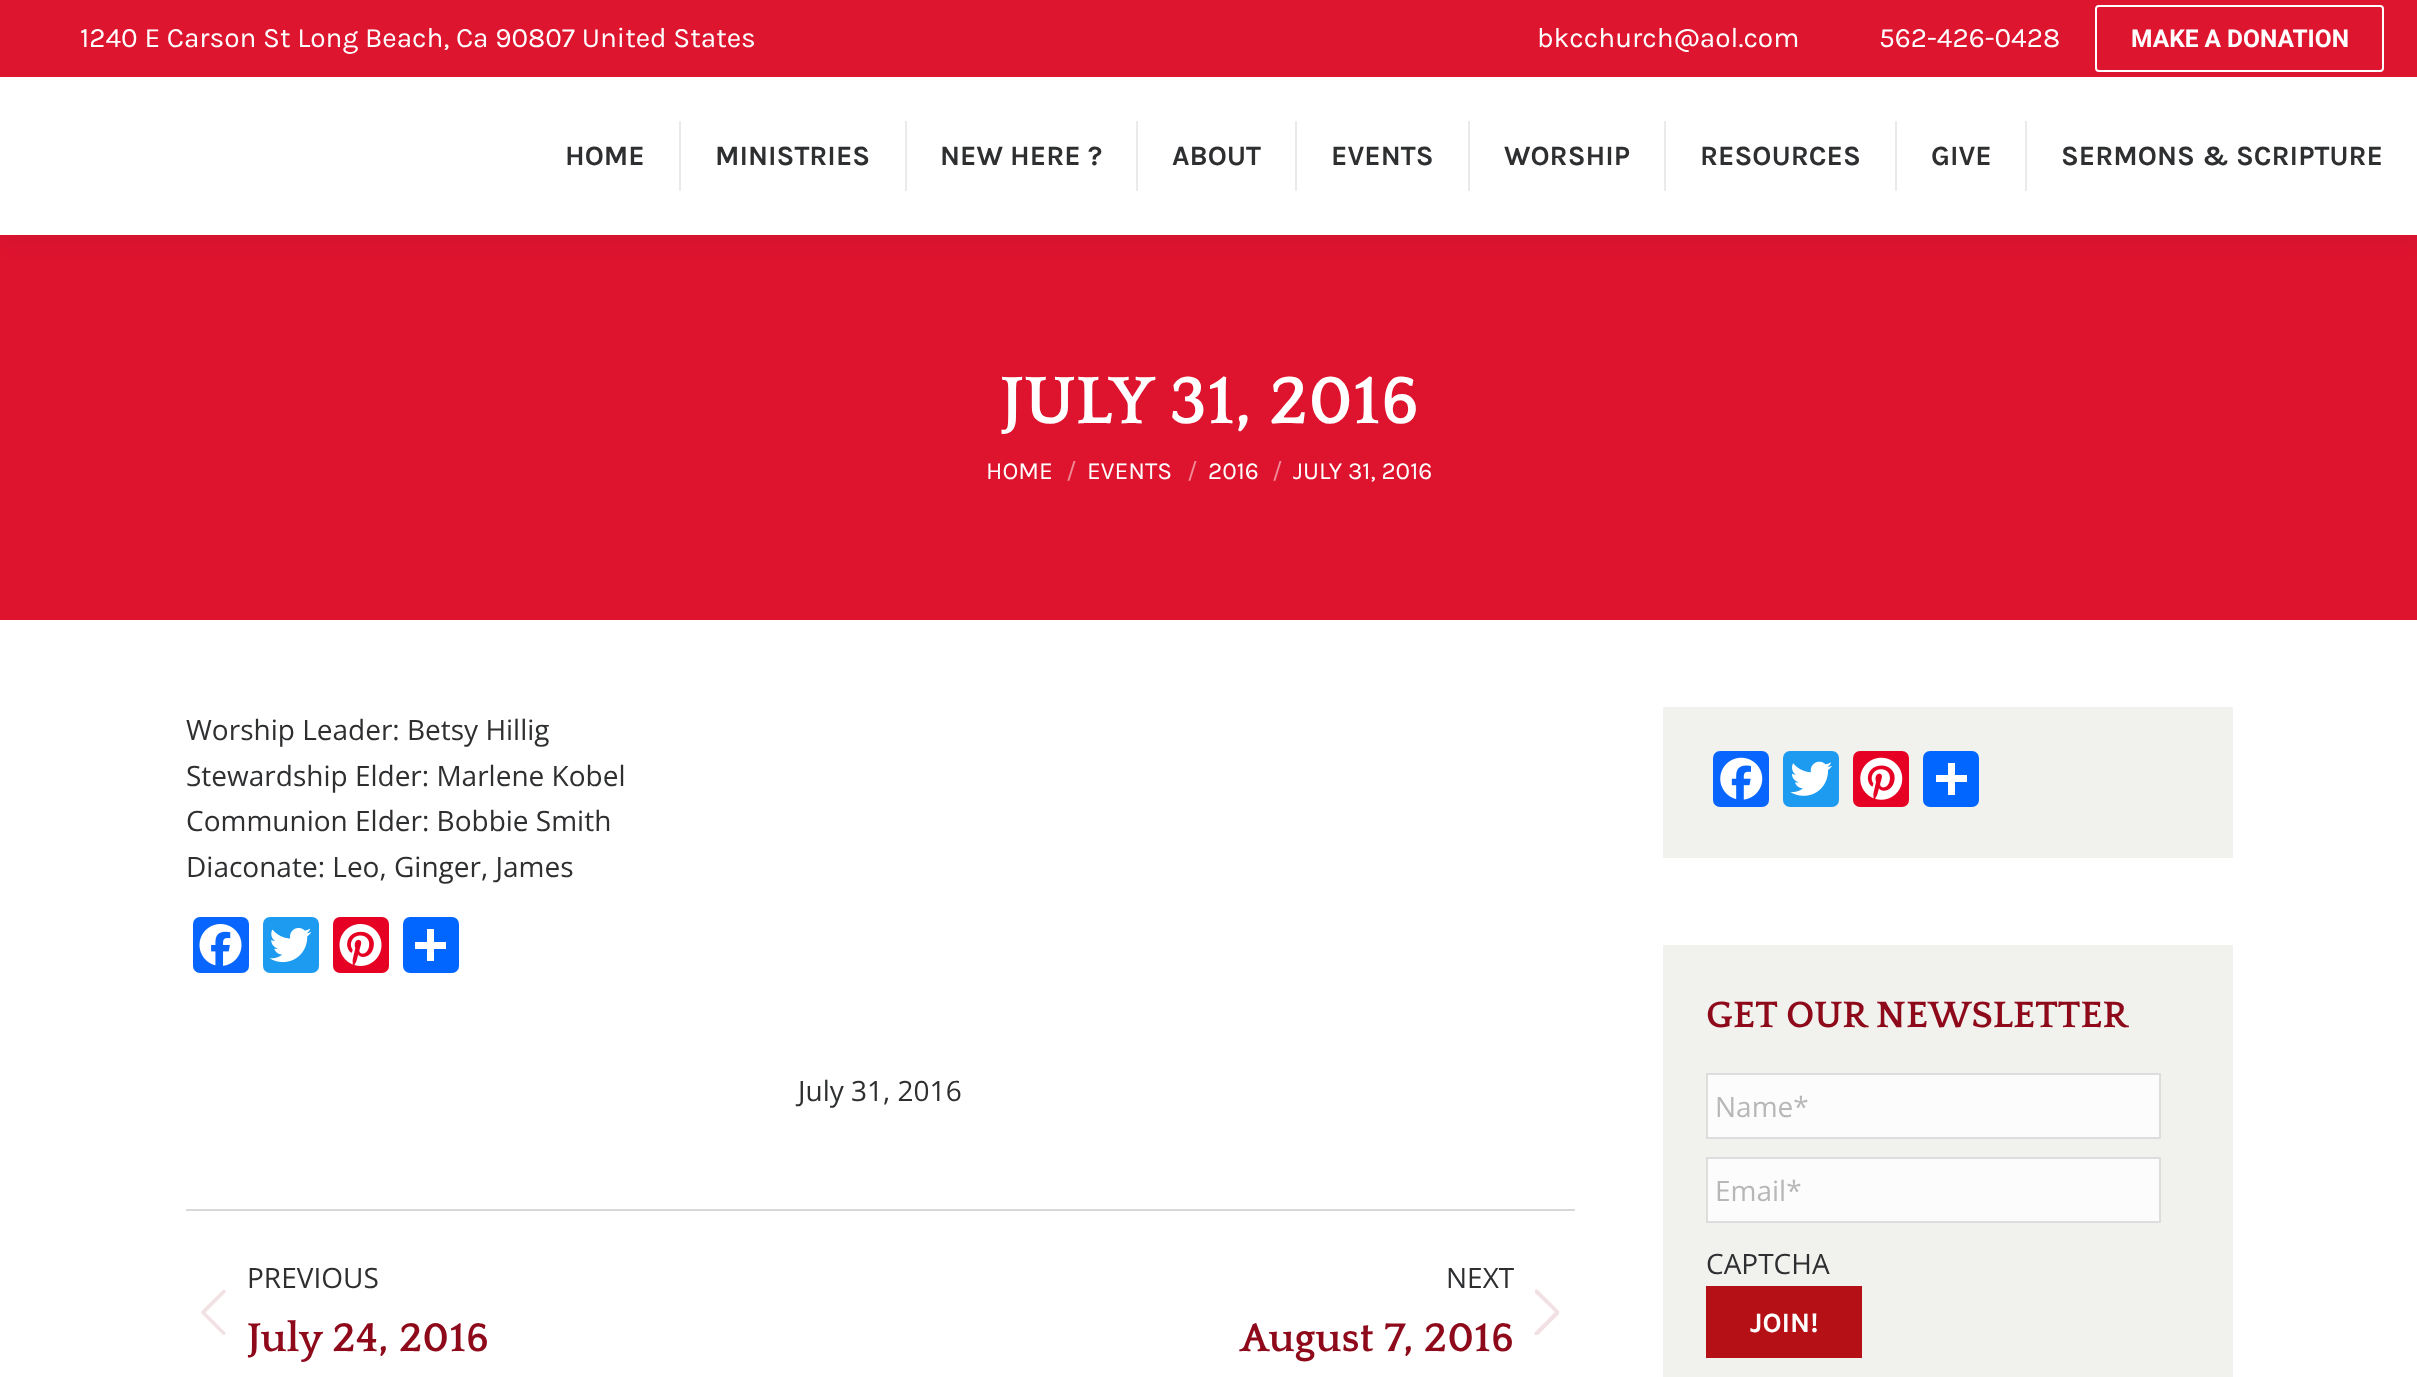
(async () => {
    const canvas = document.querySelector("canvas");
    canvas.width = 2417;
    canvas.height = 1377;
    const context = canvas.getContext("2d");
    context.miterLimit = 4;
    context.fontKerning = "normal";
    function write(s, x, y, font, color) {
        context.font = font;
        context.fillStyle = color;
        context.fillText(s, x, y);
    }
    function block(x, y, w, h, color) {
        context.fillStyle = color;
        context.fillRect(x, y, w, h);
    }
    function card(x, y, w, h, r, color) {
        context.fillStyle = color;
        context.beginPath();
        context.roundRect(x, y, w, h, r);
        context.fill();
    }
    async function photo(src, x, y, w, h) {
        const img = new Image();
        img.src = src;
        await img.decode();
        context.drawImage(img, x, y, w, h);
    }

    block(0, 0, 2417, 1377, "rgb(255, 255, 255)");
    block(0, 235, 2417, 385, "rgb(222, 20, 47)");
    context.fillStyle = "rgba(0, 0, 0, 0.07)";
    context.filter = "blur(13px)";
    context.beginPath();
    context.rect(-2, -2, 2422, 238);
    context.fill();
    context.filter = "none";
    block(0, 77, 2417, 158, "rgb(255, 255, 255)");
    block(0, 0, 2417, 77, "rgb(222, 21, 47)");
    write("1240 E Carson St Long Beach, Ca 90807 United States", 80, 47, "28px Karla", "rgb(255, 255, 255)");
    write("bkcchurch@aol.com", 1537, 47, "28px Karla", "rgb(255, 255, 255)");
    write("562-426-0428", 1879, 47, "28px Karla", "rgb(255, 255, 255)");
    context.beginPath();
    context.roundRect(2096, 6, 287, 65, 3);
    context.strokeStyle = "rgb(255, 255, 255)";
    context.lineWidth = 2;
    context.stroke();
    write("MAKE A DONATION", 2131, 47, "bold 24.5px Roboto", "rgb(255, 255, 255)");
    write("HOME", 565, 165, "bold 28px Karla", "rgb(46, 47, 49)");
    block(679, 121, 2, 70, "rgb(234, 234, 234)");
    write("MINISTRIES", 715, 165, "bold 28px Karla", "rgb(46, 47, 49)");
    block(905, 121, 2, 70, "rgb(234, 234, 234)");
    write("NEW HERE ?", 940, 165, "bold 28px Karla", "rgb(46, 47, 49)");
    block(1136, 121, 2, 70, "rgb(234, 234, 234)");
    write("ABOUT", 1172, 165, "bold 28px Karla", "rgb(46, 47, 49)");
    block(1295, 121, 2, 70, "rgb(234, 234, 234)");
    write("EVENTS", 1331, 165, "bold 28px Karla", "rgb(46, 47, 49)");
    block(1468, 121, 2, 70, "rgb(234, 234, 234)");
    write("WORSHIP", 1504, 165, "bold 28px Karla", "rgb(46, 47, 49)");
    block(1664, 121, 2, 70, "rgb(234, 234, 234)");
    write("RESOURCES", 1700, 165, "bold 28px Karla", "rgb(46, 47, 49)");
    block(1895, 121, 2, 70, "rgb(234, 234, 234)");
    write("GIVE", 1931, 165, "bold 28px Karla", "rgb(46, 47, 49)");
    block(2025, 121, 2, 70, "rgb(234, 234, 234)");
    write("SERMONS & SCRIPTURE", 2061, 165, "bold 28px Karla", "rgb(46, 47, 49)");
    write("JULY 31, 2016", 1000, 423, "bold 70px Quattrocento", "rgb(255, 255, 255)");
    write("HOME", 986, 479, "24.5px Karla", "rgb(255, 255, 255)");
    write("/", 1066, 479, "24.5px Karla", "rgb(239, 138, 151)");
    write("EVENTS", 1087, 479, "24.5px Karla", "rgb(255, 255, 255)");
    write("/", 1187, 479, "24.5px Karla", "rgb(239, 138, 151)");
    write("2016", 1208, 479, "24.5px Karla", "rgb(255, 255, 255)");
    write("/", 1272, 479, "24.5px Karla", "rgb(239, 138, 151)");
    write("JULY 31, 2016", 1293, 479, "24.5px Karla", "rgb(255, 255, 255)");
    write("Worship Leader: Betsy Hillig", 186, 740, "28px Open Sans", "rgb(46, 47, 49)");
    write("Stewardship Elder: Marlene Kobel", 186, 786, "28px Open Sans", "rgb(46, 47, 49)");
    write("Communion Elder: Bobbie Smith", 186, 831, "28px Open Sans", "rgb(46, 47, 49)");
    write("Diaconate: Leo, Ginger, James", 186, 877, "28px Open Sans", "rgb(46, 47, 49)");
    card(193, 917, 56, 56, 7, "rgb(8, 102, 255)");
    await photo("media/1.png", 199, 924, 43, 42);
    card(263, 917, 56, 56, 7, "rgb(29, 155, 240)");
    await photo("media/2.png", 269, 927, 43, 36);
    card(333, 917, 56, 56, 7, "rgb(230, 0, 35)");
    await photo("media/3.png", 339, 924, 43, 42);
    card(403, 917, 56, 56, 7, "rgb(1, 102, 255)");
    block(427, 929, 7, 32, "rgb(255, 255, 255)");
    block(415, 942, 31, 7, "rgb(255, 255, 255)");
    write("July 31, 2016", 798, 1101, "28px Open Sans", "rgb(46, 47, 49)");
    block(186, 1209, 1389, 2, "rgb(216, 216, 216)");
    write("PREVIOUS", 247, 1288, "28px Open Sans", "rgb(46, 47, 49)");
    await photo("media/4.png", 201, 1290, 25, 45);
    write("July 24, 2016", 247, 1351, "bold 42px Quattrocento", "rgb(142, 9, 26)");
    write("NEXT", 1446, 1288, "28px Open Sans", "rgb(46, 47, 49)");
    context.fillStyle = "rgb(241, 225, 228)";
    context.beginPath();
    context.moveTo(1535, 1290);
    context.bezierCurveTo(1536, 1289, 1537, 1289, 1538, 1290);
    context.lineTo(1559, 1311);
    context.bezierCurveTo(1559, 1312, 1559, 1313, 1559, 1314);
    context.lineTo(1538, 1335);
    context.bezierCurveTo(1537, 1335, 1536, 1335, 1535, 1335);
    context.bezierCurveTo(1534, 1334, 1534, 1333, 1535, 1332);
    context.lineTo(1555, 1312);
    context.lineTo(1535, 1293);
    context.closePath();
    context.fill();
    write("August 7, 2016", 1240, 1351, "bold 42px Quattrocento", "rgb(142, 9, 26)");
    block(1663, 707, 570, 151, "rgb(241, 241, 238)");
    card(1713, 751, 56, 56, 7, "rgb(8, 102, 255)");
    await photo("media/5.png", 1720, 757, 43, 43);
    card(1783, 751, 56, 56, 7, "rgb(29, 155, 240)");
    await photo("media/6.png", 1790, 761, 43, 35);
    card(1853, 751, 56, 56, 7, "rgb(230, 0, 35)");
    await photo("media/7.png", 1860, 757, 43, 43);
    card(1923, 751, 56, 56, 7, "rgb(1, 102, 255)");
    block(1948, 763, 7, 32, "rgb(255, 255, 255)");
    block(1936, 775, 31, 7, "rgb(255, 255, 255)");
    block(1663, 945, 570, 432, "rgb(241, 241, 238)");
    write("GET OUR NEWSLETTER", 1706, 1027, "bold 38.5px Quattrocento", "rgb(142, 9, 26)");
    context.fillStyle = "rgb(252, 252, 252)";
    context.beginPath();
    context.rect(1707, 1074, 453, 64);
    context.fill();
    context.strokeStyle = "rgb(221, 221, 221)";
    context.stroke();
    write("Name*", 1715, 1117, "28px Open Sans", "rgb(183, 183, 183)");
    context.fillStyle = "rgb(252, 252, 252)";
    context.beginPath();
    context.rect(1707, 1158, 453, 64);
    context.fill();
    context.stroke();
    write("Email*", 1715, 1201, "28px Open Sans", "rgb(183, 183, 183)");
    write("CAPTCHA", 1706, 1274, "28px Open Sans", "rgb(46, 47, 49)");
    block(1706, 1286, 156, 72, "rgb(181, 16, 21)");
    write("JOIN!", 1750, 1332, "bold 28px Karla", "rgb(255, 255, 255)");
})();
